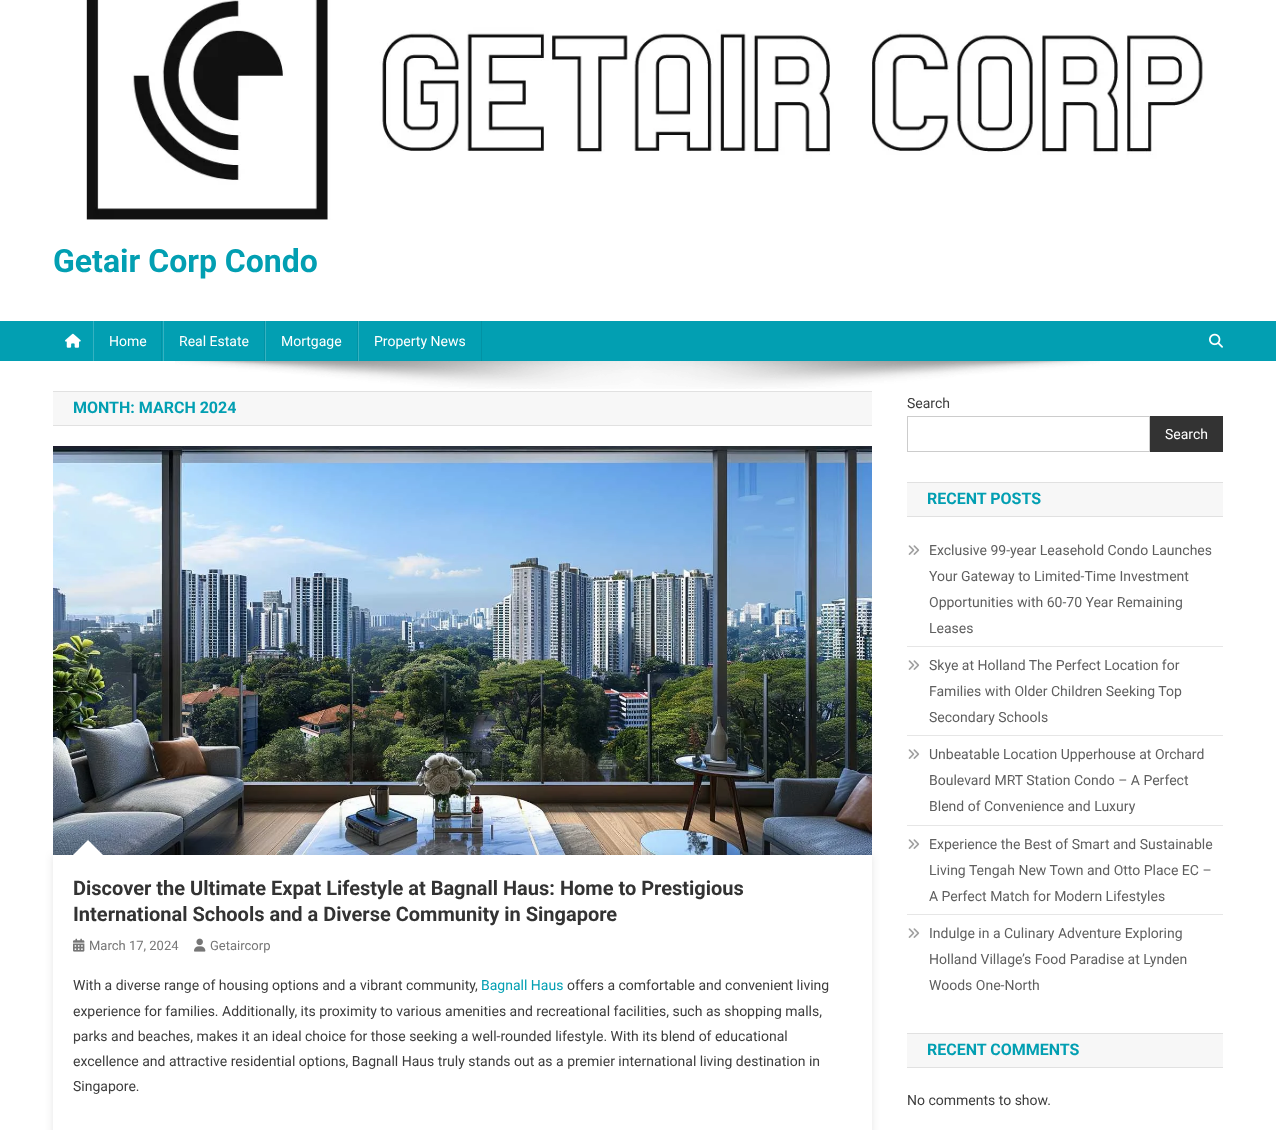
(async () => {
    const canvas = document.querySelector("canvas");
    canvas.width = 1276;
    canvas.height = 1130;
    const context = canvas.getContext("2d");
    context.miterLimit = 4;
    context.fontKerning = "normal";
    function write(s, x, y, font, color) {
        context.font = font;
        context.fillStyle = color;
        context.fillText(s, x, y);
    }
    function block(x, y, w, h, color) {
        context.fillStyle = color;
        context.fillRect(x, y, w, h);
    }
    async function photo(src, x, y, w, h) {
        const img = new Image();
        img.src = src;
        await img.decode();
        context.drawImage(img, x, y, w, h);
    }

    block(0, 0, 1276, 1130, "rgb(255, 255, 255)");
    await photo("media/1.png", 86, 0, 1118, 220);
    write("Getair Corp Condo", 53, 272, "bold 32px Roboto", "rgb(2, 159, 178)");
    block(0, 321, 1276, 40, "rgb(2, 159, 178)");
    await photo("media/2.png", 65, 333, 16, 15);
    block(161, 321, 1, 40, "rgb(2, 146, 164)");
    block(93, 321, 1, 40, "rgb(53, 178, 193)");
    write("Home", 109, 346, "14px Roboto", "rgb(255, 255, 255)");
    block(264, 321, 1, 40, "rgb(2, 146, 164)");
    block(163, 321, 1, 40, "rgb(53, 178, 193)");
    write("Real Estate", 179, 346, "14px Roboto", "rgb(255, 255, 255)");
    block(357, 321, 1, 40, "rgb(2, 146, 164)");
    block(265, 321, 1, 40, "rgb(53, 178, 193)");
    write("Mortgage", 281, 346, "14px Roboto", "rgb(255, 255, 255)");
    block(481, 321, 1, 40, "rgb(2, 146, 164)");
    block(358, 321, 1, 40, "rgb(53, 178, 193)");
    write("Property News", 374, 346, "14px Roboto", "rgb(255, 255, 255)");
    await photo("media/3.png", 1209, 333, 14, 15);
    await photo("media/4.png", 175, 361, 925, 28);
    block(53, 392, 819, 33, "rgb(247, 247, 247)");
    block(53, 391, 819, 1, "rgb(225, 225, 225)");
    block(53, 425, 819, 1, "rgb(225, 225, 225)");
    write("MONTH: MARCH 2024", 73, 413, "bold 16px Roboto", "rgb(2, 159, 178)");
    await photo("media/5.png", 53, 446, 819, 409);
    context.save();
    context.beginPath();
    context.moveTo(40, 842);
    context.lineTo(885, 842);
    context.lineTo(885, 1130);
    context.lineTo(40, 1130);
    context.closePath();
    context.moveTo(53, 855);
    context.lineTo(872, 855);
    context.lineTo(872, 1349);
    context.lineTo(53, 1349);
    context.closePath();
    context.clip("evenodd");
    context.fillStyle = "rgba(0, 0, 0, 0.1)";
    context.filter = "blur(4px)";
    context.beginPath();
    context.rect(53, 855, 819, 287);
    context.fill();
    context.filter = "none";
    context.restore();
    context.fillStyle = "rgb(255, 255, 255)";
    context.beginPath();
    context.moveTo(103, 855);
    context.lineTo(73, 855);
    context.lineTo(88, 840);
    context.closePath();
    context.fill();
    write("Discover the Ultimate Expat Lifestyle at Bagnall Haus: Home to Prestigious", 73, 895, "bold 20px Roboto", "rgb(51, 51, 51)");
    write("International Schools and a Diverse Community in Singapore", 73, 921, "bold 20px Roboto", "rgb(51, 51, 51)");
    await photo("media/6.png", 73, 938, 12, 14);
    write("March 17, 2024", 89, 950, "13px Roboto", "rgb(118, 118, 118)");
    await photo("media/7.png", 194, 938, 12, 14);
    write("Getaircorp", 210, 950, "13px Roboto", "rgb(118, 118, 118)");
    write("With a diverse range of housing options and a vibrant community,", 73, 990, "14px Roboto", "rgb(61, 61, 61)");
    write("Bagnall Haus", 481, 990, "14px Roboto", "rgb(2, 159, 178)");
    write("offers a comfortable and convenient living", 567, 990, "14px Roboto", "rgb(61, 61, 61)");
    write("experience for families. Additionally, its proximity to various amenities and recreational facilities, such as shopping malls,", 73, 1016, "14px Roboto", "rgb(61, 61, 61)");
    write("parks and beaches, makes it an ideal choice for those seeking a well-rounded lifestyle. With its blend of educational", 73, 1041, "14px Roboto", "rgb(61, 61, 61)");
    write("excellence and attractive residential options, Bagnall Haus truly stands out as a premier international living destination in", 73, 1066, "14px Roboto", "rgb(61, 61, 61)");
    write("Singapore.", 73, 1091, "14px Roboto", "rgb(61, 61, 61)");
    write("Search", 907, 408, "14px Roboto", "rgb(61, 61, 61)");
    context.strokeStyle = "rgb(204, 204, 204)";
    context.strokeRect(907.5, 416.5, 242, 35);
    block(1150, 416, 73, 36, "rgb(51, 51, 51)");
    write("Search", 1165, 439, "14px Roboto", "rgb(255, 255, 255)");
    block(907, 483, 316, 33, "rgb(247, 247, 247)");
    block(907, 482, 316, 1, "rgb(225, 225, 225)");
    block(907, 516, 316, 1, "rgb(225, 225, 225)");
    write("RECENT POSTS", 927, 504, "bold 16px Roboto", "rgb(2, 159, 178)");
    block(907, 646, 316, 1, "rgb(230, 230, 230)");
    await photo("media/8.png", 908, 545, 12, 10);
    write("Exclusive 99-year Leasehold Condo Launches", 929, 555, "14px Roboto", "rgb(95, 95, 95)");
    write("Your Gateway to Limited-Time Investment", 929, 581, "14px Roboto", "rgb(95, 95, 95)");
    write("Opportunities with 60-70 Year Remaining", 929, 607, "14px Roboto", "rgb(95, 95, 95)");
    write("Leases", 929, 633, "14px Roboto", "rgb(95, 95, 95)");
    block(907, 735, 316, 1, "rgb(230, 230, 230)");
    await photo("media/8.png", 908, 660, 12, 10);
    write("Skye at Holland The Perfect Location for", 929, 670, "14px Roboto", "rgb(95, 95, 95)");
    write("Families with Older Children Seeking Top", 929, 696, "14px Roboto", "rgb(95, 95, 95)");
    write("Secondary Schools", 929, 722, "14px Roboto", "rgb(95, 95, 95)");
    block(907, 825, 316, 1, "rgb(230, 230, 230)");
    await photo("media/8.png", 908, 749, 12, 10);
    write("Unbeatable Location Upperhouse at Orchard", 929, 759, "14px Roboto", "rgb(95, 95, 95)");
    write("Boulevard MRT Station Condo – A Perfect", 929, 785, "14px Roboto", "rgb(95, 95, 95)");
    write("Blend of Convenience and Luxury", 929, 811, "14px Roboto", "rgb(95, 95, 95)");
    block(907, 914, 316, 1, "rgb(230, 230, 230)");
    await photo("media/8.png", 908, 839, 12, 10);
    write("Experience the Best of Smart and Sustainable", 929, 849, "14px Roboto", "rgb(95, 95, 95)");
    write("Living Tengah New Town and Otto Place EC –", 929, 875, "14px Roboto", "rgb(95, 95, 95)");
    write("A Perfect Match for Modern Lifestyles", 929, 901, "14px Roboto", "rgb(95, 95, 95)");
    await photo("media/8.png", 908, 928, 12, 10);
    write("Indulge in a Culinary Adventure Exploring", 929, 938, "14px Roboto", "rgb(95, 95, 95)");
    write("Holland Village’s Food Paradise at Lynden", 929, 964, "14px Roboto", "rgb(95, 95, 95)");
    write("Woods One-North", 929, 990, "14px Roboto", "rgb(95, 95, 95)");
    block(907, 1034, 316, 33, "rgb(247, 247, 247)");
    block(907, 1033, 316, 1, "rgb(225, 225, 225)");
    block(907, 1067, 316, 1, "rgb(225, 225, 225)");
    write("RECENT COMMENTS", 927, 1055, "bold 16px Roboto", "rgb(2, 159, 178)");
    write("No comments to show.", 907, 1105, "14px Roboto", "rgb(61, 61, 61)");
})();
